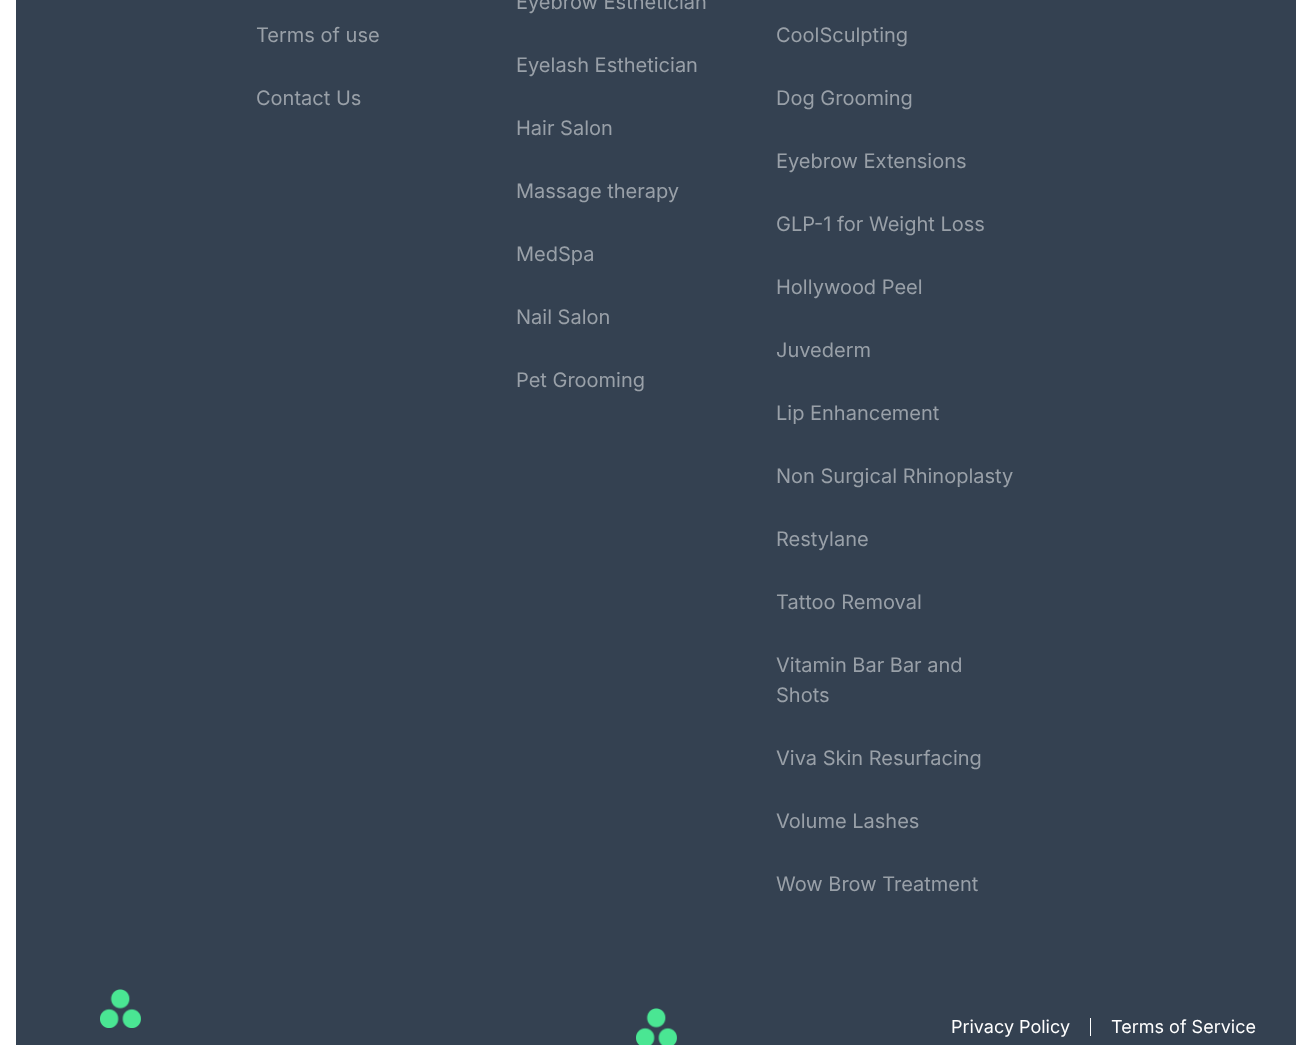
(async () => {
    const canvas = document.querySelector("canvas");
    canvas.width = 1312;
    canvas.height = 1045;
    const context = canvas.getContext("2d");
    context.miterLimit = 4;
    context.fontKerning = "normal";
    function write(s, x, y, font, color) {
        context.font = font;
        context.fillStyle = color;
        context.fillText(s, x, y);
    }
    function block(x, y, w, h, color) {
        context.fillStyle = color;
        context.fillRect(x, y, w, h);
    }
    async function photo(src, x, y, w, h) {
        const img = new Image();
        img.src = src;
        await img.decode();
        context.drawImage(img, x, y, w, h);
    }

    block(0, 0, 1312, 1045, "rgb(255, 255, 255)");
    block(16, 0, 1280, 1045, "rgb(52, 65, 81)");
    write("Terms of use", 256, 42, "20px Inter", "rgb(153, 160, 168)");
    write("Contact Us", 256, 105, "20px Inter", "rgb(153, 160, 168)");
    write("Eyebrow Esthetician", 516, 9, "20px Inter", "rgb(153, 160, 168)");
    write("Eyelash Esthetician", 516, 72, "20px Inter", "rgb(153, 160, 168)");
    write("Hair Salon", 516, 135, "20px Inter", "rgb(153, 160, 168)");
    write("Massage therapy", 516, 198, "20px Inter", "rgb(153, 160, 168)");
    write("MedSpa", 516, 261, "20px Inter", "rgb(153, 160, 168)");
    write("Nail Salon", 516, 324, "20px Inter", "rgb(153, 160, 168)");
    write("Pet Grooming", 516, 387, "20px Inter", "rgb(153, 160, 168)");
    write("CoolSculpting", 776, 42, "20px Inter", "rgb(153, 160, 168)");
    write("Dog Grooming", 776, 105, "20px Inter", "rgb(153, 160, 168)");
    write("Eyebrow Extensions", 776, 168, "20px Inter", "rgb(153, 160, 168)");
    write("GLP-1 for Weight Loss", 776, 231, "20px Inter", "rgb(153, 160, 168)");
    write("Hollywood Peel", 776, 294, "20px Inter", "rgb(153, 160, 168)");
    write("Juvederm", 776, 357, "20px Inter", "rgb(153, 160, 168)");
    write("Lip Enhancement", 776, 420, "20px Inter", "rgb(153, 160, 168)");
    write("Non Surgical Rhinoplasty", 776, 483, "20px Inter", "rgb(153, 160, 168)");
    write("Restylane", 776, 546, "20px Inter", "rgb(153, 160, 168)");
    write("Tattoo Removal", 776, 609, "20px Inter", "rgb(153, 160, 168)");
    write("Vitamin Bar Bar and", 776, 672, "20px Inter", "rgb(153, 160, 168)");
    write("Shots", 776, 702, "20px Inter", "rgb(153, 160, 168)");
    write("Viva Skin Resurfacing", 776, 765, "20px Inter", "rgb(153, 160, 168)");
    write("Volume Lashes", 776, 828, "20px Inter", "rgb(153, 160, 168)");
    write("Wow Brow Treatment", 776, 891, "20px Inter", "rgb(153, 160, 168)");
    await photo("media/1.png", 100, 989, 41, 39);
    await photo("media/2.png", 636, 1008, 41, 37);
    block(1090, 1018, 1, 18, "rgb(255, 255, 255)");
    write("Privacy Policy", 951, 1033, "18px Inter", "rgb(255, 255, 255)");
    write("Terms of Service", 1111, 1033, "18px Inter", "rgb(255, 255, 255)");
})();
